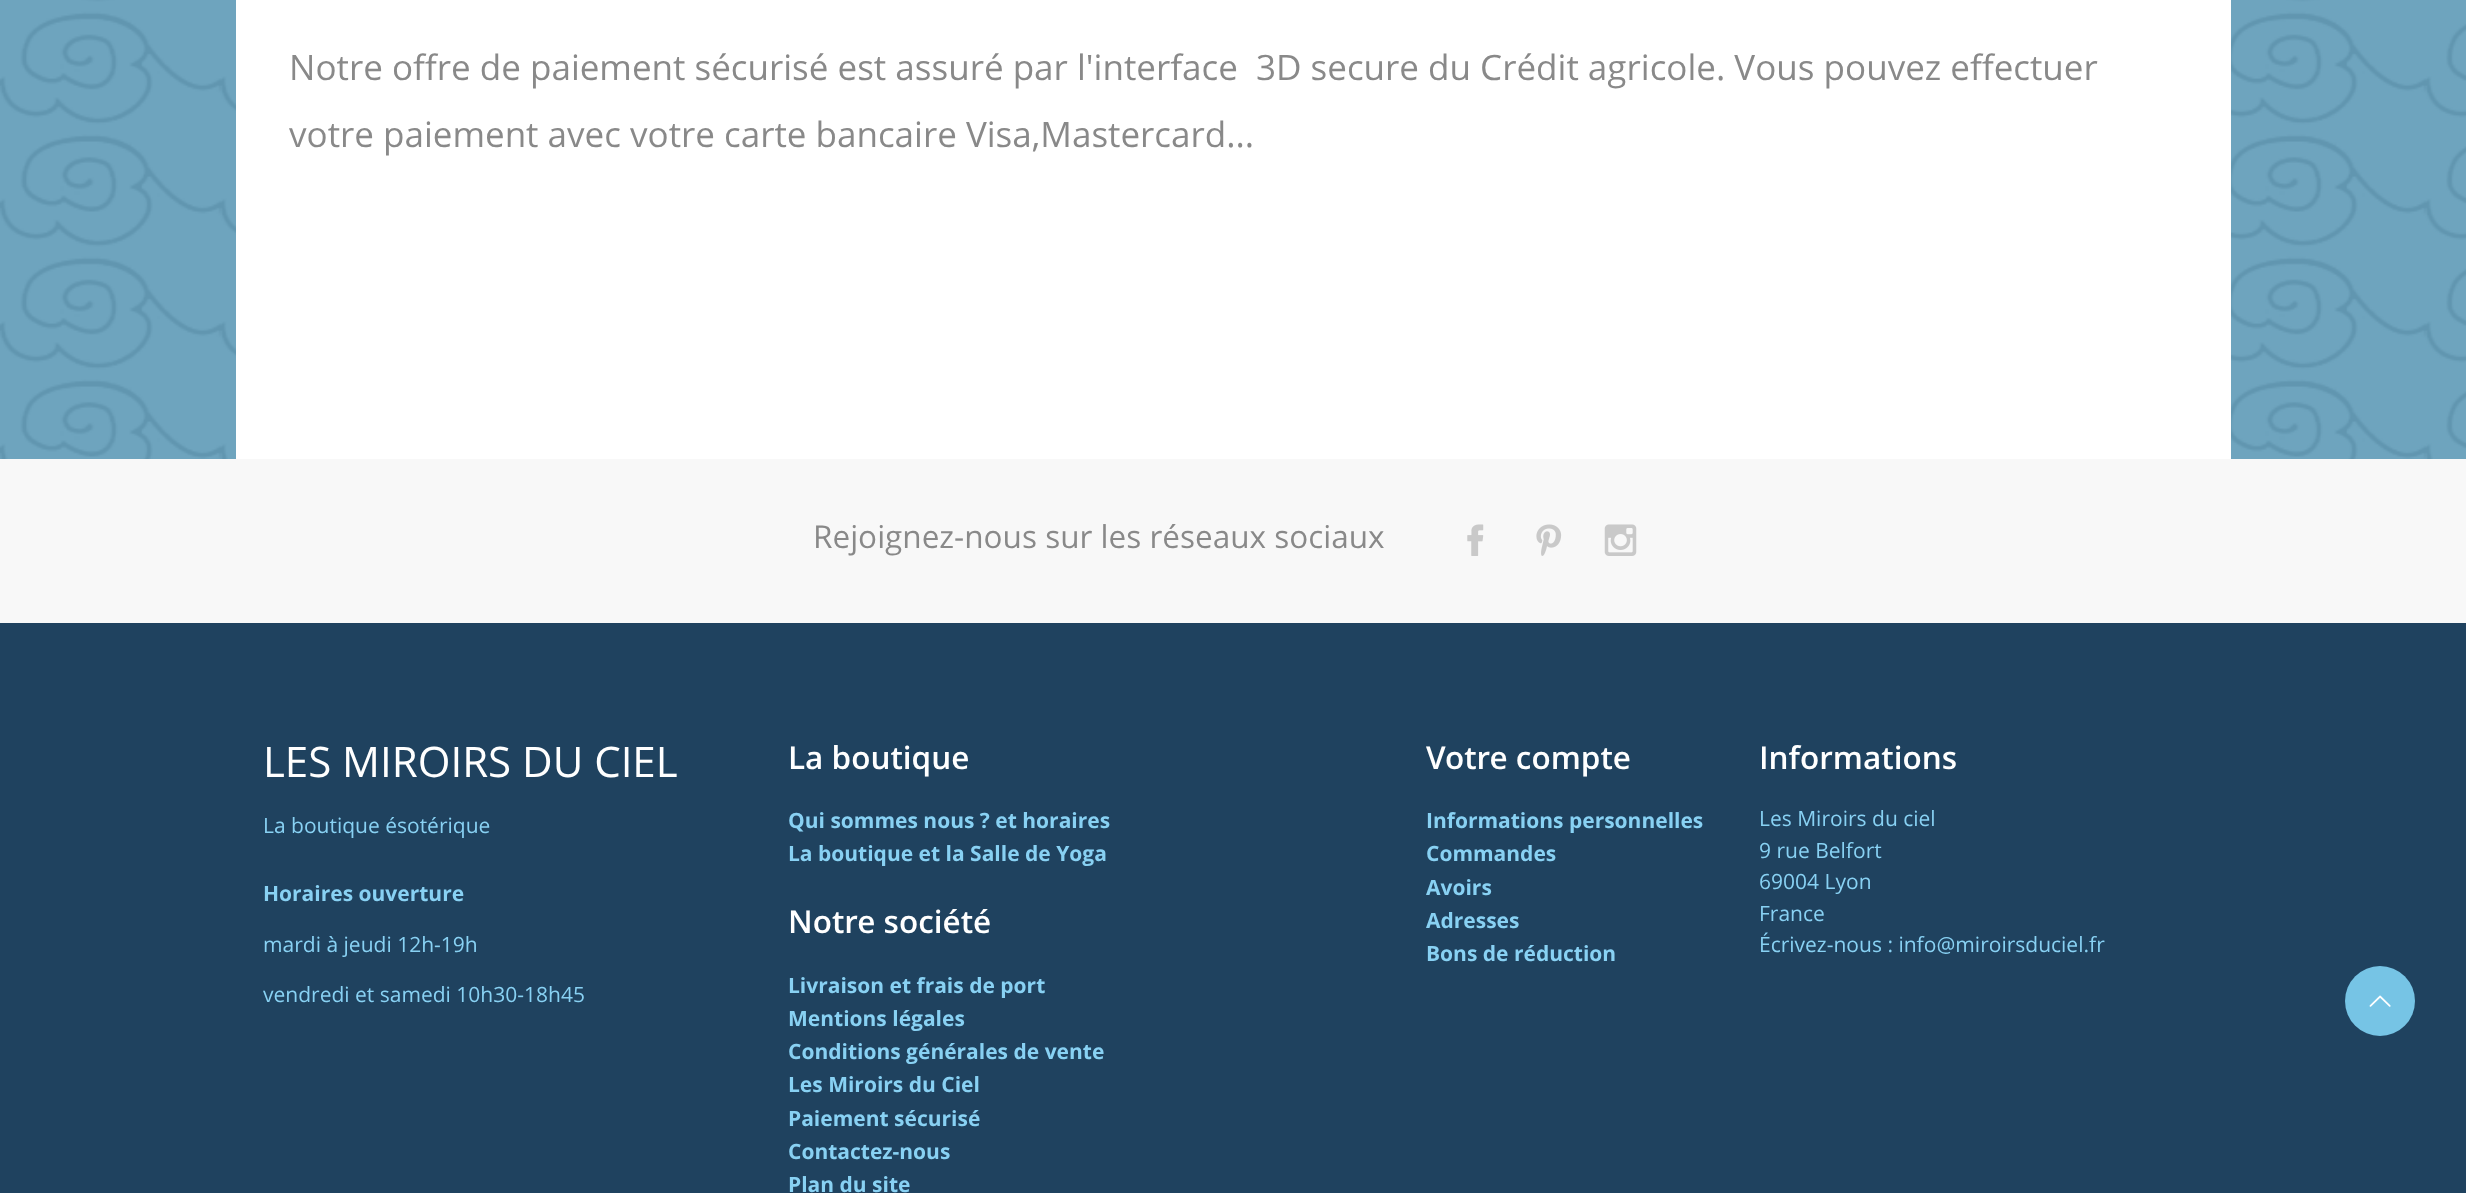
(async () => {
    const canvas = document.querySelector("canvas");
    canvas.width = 2466;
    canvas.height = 1193;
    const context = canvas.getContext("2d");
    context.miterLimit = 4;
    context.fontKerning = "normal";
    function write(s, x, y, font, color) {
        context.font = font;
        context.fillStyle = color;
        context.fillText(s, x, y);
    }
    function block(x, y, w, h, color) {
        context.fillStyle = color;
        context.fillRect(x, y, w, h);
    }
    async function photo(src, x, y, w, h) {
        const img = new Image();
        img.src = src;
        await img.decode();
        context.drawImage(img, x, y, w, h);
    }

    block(0, 0, 2466, 1193, "rgb(255, 255, 255)");
    await photo("media/1.png", 0, 0, 2466, 459);
    block(236, 0, 1995, 459, "rgb(255, 255, 255)");
    write("Notre offre de paiement sécurisé est assuré par l'interface  3D secure du Crédit agricole. Vous pouvez effectuer", 289, 80, "35px Open Sans", "rgb(137, 137, 137)");
    write("votre paiement avec votre carte bancaire Visa,Mastercard...", 289, 147, "35px Open Sans", "rgb(137, 137, 137)");
    block(0, 459, 2466, 164, "rgb(248, 248, 248)");
    write("Rejoignez-nous sur les réseaux sociaux", 813, 548, "31.5px Open Sans", "rgb(137, 137, 137)");
    await photo("media/2.png", 1467, 524, 17, 32);
    await photo("media/3.png", 1536, 524, 26, 32);
    await photo("media/4.png", 1604, 524, 33, 32);
    block(0, 623, 2466, 570, "rgb(31, 66, 95)");
    write("LES MIROIRS DU CIEL", 263, 777, "42px Open Sans", "rgb(255, 255, 255)");
    write("La boutique ésotérique", 263, 833, "21px Open Sans", "rgb(136, 209, 243)");
    write("Horaires ouverture", 263, 901, "bold 21px Open Sans", "rgb(136, 209, 243)");
    write("mardi à jeudi 12h-19h", 263, 952, "21px Open Sans", "rgb(136, 209, 243)");
    write("vendredi et samedi 10h30-18h45", 263, 1002, "21px Open Sans", "rgb(136, 209, 243)");
    write("La boutique", 788, 769, "600 31.5px Open Sans", "rgb(255, 255, 255)");
    write("Qui sommes nous ? et horaires", 788, 828, "bold 21px Open Sans", "rgb(136, 209, 243)");
    write("La boutique et la Salle de Yoga", 788, 861, "bold 21px Open Sans", "rgb(136, 209, 243)");
    write("Notre société", 788, 933, "600 31.5px Open Sans", "rgb(255, 255, 255)");
    write("Livraison et frais de port", 788, 993, "bold 21px Open Sans", "rgb(136, 209, 243)");
    write("Mentions légales", 788, 1026, "bold 21px Open Sans", "rgb(136, 209, 243)");
    write("Conditions générales de vente", 788, 1059, "bold 21px Open Sans", "rgb(136, 209, 243)");
    write("Les Miroirs du Ciel", 788, 1092, "bold 21px Open Sans", "rgb(136, 209, 243)");
    write("Paiement sécurisé", 788, 1126, "bold 21px Open Sans", "rgb(136, 209, 243)");
    write("Contactez-nous", 788, 1159, "bold 21px Open Sans", "rgb(136, 209, 243)");
    write("Plan du site", 788, 1192, "bold 21px Open Sans", "rgb(136, 209, 243)");
    write("Votre compte", 1426, 769, "600 31.5px Open Sans", "rgb(255, 255, 255)");
    write("Informations personnelles", 1426, 828, "bold 21px Open Sans", "rgb(136, 209, 243)");
    write("Commandes", 1426, 861, "bold 21px Open Sans", "rgb(136, 209, 243)");
    write("Avoirs", 1426, 895, "bold 21px Open Sans", "rgb(136, 209, 243)");
    write("Adresses", 1426, 928, "bold 21px Open Sans", "rgb(136, 209, 243)");
    write("Bons de réduction", 1426, 961, "bold 21px Open Sans", "rgb(136, 209, 243)");
    write("Informations", 1759, 769, "600 31.5px Open Sans", "rgb(255, 255, 255)");
    write("Les Miroirs du ciel", 1759, 826, "21px Open Sans", "rgb(136, 209, 243)");
    write("9 rue Belfort", 1759, 858, "21px Open Sans", "rgb(136, 209, 243)");
    write("69004 Lyon", 1759, 889, "21px Open Sans", "rgb(136, 209, 243)");
    write("France", 1759, 921, "21px Open Sans", "rgb(136, 209, 243)");
    write("Écrivez-nous : info@miroirsduciel.fr", 1759, 952, "21px Open Sans", "rgb(136, 209, 243)");
    context.fillStyle = "rgb(118, 196, 229)";
    context.beginPath();
    context.arc(2380, 1001, 35, 0, Math.PI * 2);
    context.fill();
    await photo("media/5.png", 2369, 995, 22, 12);
})();
